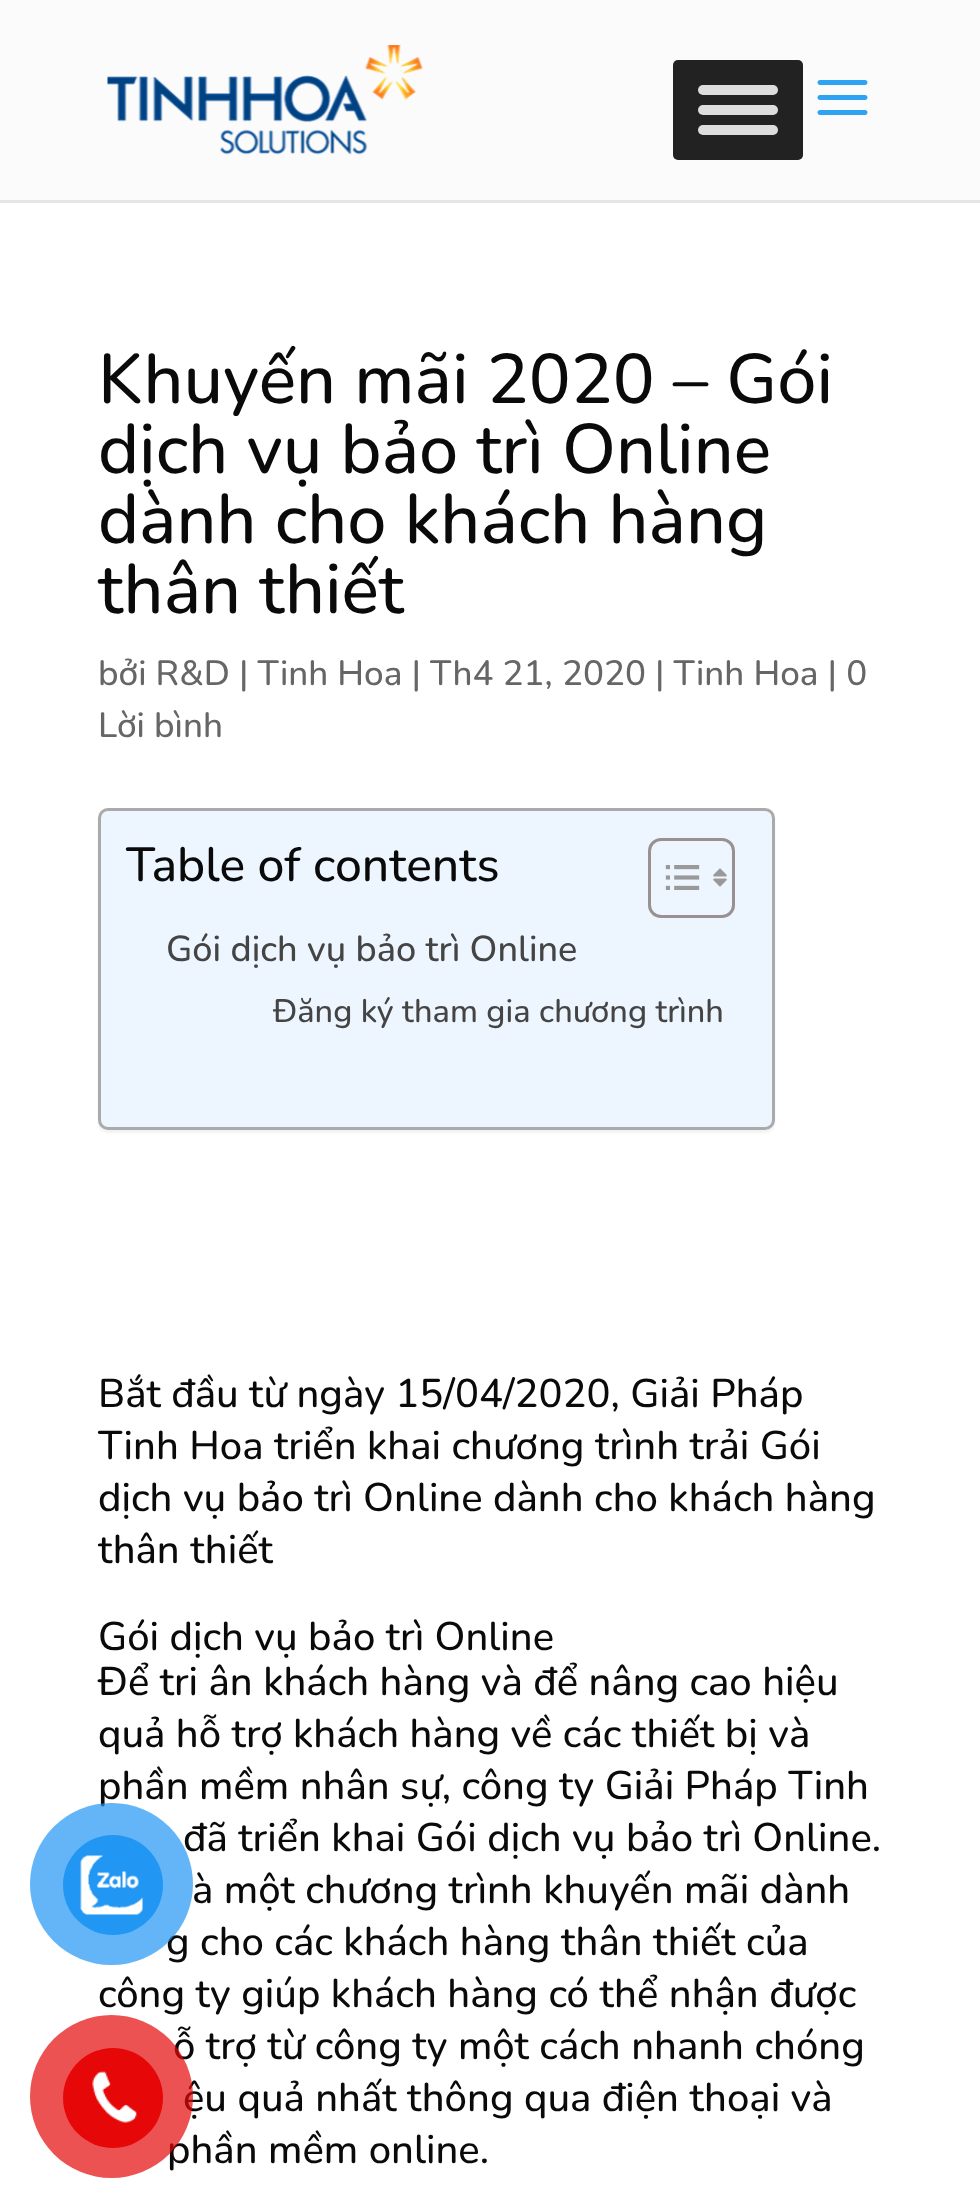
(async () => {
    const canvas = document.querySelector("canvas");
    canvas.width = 980;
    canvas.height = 2208;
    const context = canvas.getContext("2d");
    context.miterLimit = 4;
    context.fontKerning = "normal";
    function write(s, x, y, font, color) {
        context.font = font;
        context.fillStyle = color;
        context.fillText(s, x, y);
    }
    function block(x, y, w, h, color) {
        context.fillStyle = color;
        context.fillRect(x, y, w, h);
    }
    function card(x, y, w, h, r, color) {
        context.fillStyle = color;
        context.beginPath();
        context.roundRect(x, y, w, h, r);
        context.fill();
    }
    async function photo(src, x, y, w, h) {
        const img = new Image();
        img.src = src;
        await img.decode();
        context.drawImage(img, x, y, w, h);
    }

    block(0, 0, 980, 2208, "rgb(255, 255, 255)");
    block(0, 200, 980, 3, "rgb(230, 230, 230)");
    block(0, 0, 980, 200, "rgb(251, 251, 251)");
    await photo("media/1.png", 107, 45, 316, 110);
    card(673, 60, 130, 100, 5, "rgb(34, 34, 34)");
    card(698, 85, 80, 10, 5, "rgb(221, 221, 221)");
    card(698, 105, 80, 10, 5, "rgb(221, 221, 221)");
    card(698, 125, 80, 10, 5, "rgb(221, 221, 221)");
    await photo("media/2.png", 817, 80, 51, 35);
    write("Khuyến mãi 2020 – Gói", 98, 403, "500 70px Nunito", "rgb(10, 10, 10)");
    write("dịch vụ bảo trì Online", 98, 473, "500 70px Nunito", "rgb(10, 10, 10)");
    write("dành cho khách hàng", 98, 543, "500 70px Nunito", "rgb(10, 10, 10)");
    write("thân thiết", 98, 613, "500 70px Nunito", "rgb(10, 10, 10)");
    write("bởi R&D | Tinh Hoa | Th4 21, 2020 | Tinh Hoa | 0", 98, 685, "500 35px Nunito", "rgb(102, 102, 102)");
    write("Lời bình", 98, 737, "500 35px Nunito", "rgb(102, 102, 102)");
    context.fillStyle = "rgba(0, 0, 0, 0.05)";
    context.filter = "blur(1px)";
    context.beginPath();
    context.roundRect(98, 810, 677, 323, 10);
    context.fill();
    context.filter = "none";
    context.fillStyle = "rgb(237, 246, 255)";
    context.beginPath();
    context.roundRect(99.5, 809.5, 674, 319, 8.5);
    context.fill();
    context.strokeStyle = "rgb(170, 170, 170)";
    context.lineWidth = 3;
    context.stroke();
    write("Table of contents", 126, 881, "500 48px Nunito", "rgb(10, 10, 10)");
    context.beginPath();
    context.roundRect(649.5, 839.5, 84, 77, 11.5);
    context.strokeStyle = "rgb(153, 145, 145)";
    context.stroke();
    await photo("media/3.png", 665, 865, 35, 25);
    await photo("media/4.png", 713, 868, 14, 19);
    write("Gói dịch vụ bảo trì Online", 166, 961, "500 36.1px Nunito", "rgb(68, 68, 68)");
    context.save();
    context.beginPath();
    context.rect(273, 985, 450, 55);
    context.clip();
    write("Đăng ký tham gia chương trình", 273, 1022, "500 32.5px Nunito", "rgb(68, 68, 68)");
    context.restore();
    write("Bắt đầu từ ngày 15/04/2020, Giải Pháp", 98, 1407, "500 40px Nunito", "rgb(10, 10, 10)");
    write("Tinh Hoa triển khai chương trình trải Gói", 98, 1459, "500 40px Nunito", "rgb(10, 10, 10)");
    write("dịch vụ bảo trì Online dành cho khách hàng", 98, 1511, "500 40px Nunito", "rgb(10, 10, 10)");
    write("thân thiết", 98, 1563, "500 40px Nunito", "rgb(10, 10, 10)");
    write("Gói dịch vụ bảo trì Online", 98, 1650, "500 40px Nunito", "rgb(10, 10, 10)");
    write("Để tri ân khách hàng và để nâng cao hiệu", 98, 1695, "500 40px Nunito", "rgb(10, 10, 10)");
    write("quả hỗ trợ khách hàng về các thiết bị và", 98, 1747, "500 40px Nunito", "rgb(10, 10, 10)");
    write("phần mềm nhân sự, công ty Giải Pháp Tinh", 98, 1799, "500 40px Nunito", "rgb(10, 10, 10)");
    write("đã triển khai Gói dịch vụ bảo trì Online.", 183, 1851, "500 40px Nunito", "rgb(10, 10, 10)");
    write("à một chương trình khuyến mãi dành", 192, 1903, "500 40px Nunito", "rgb(10, 10, 10)");
    write("g cho các khách hàng thân thiết của", 166, 1955, "500 40px Nunito", "rgb(10, 10, 10)");
    write("công ty giúp khách hàng có thể nhận được", 98, 2007, "500 40px Nunito", "rgb(10, 10, 10)");
    write("ỗ trợ từ công ty một cách nhanh chóng", 173, 2059, "500 40px Nunito", "rgb(10, 10, 10)");
    write("ệu quả nhất thông qua điện thoại và", 183, 2111, "500 40px Nunito", "rgb(10, 10, 10)");
    write("phần mềm online.", 167, 2163, "500 40px Nunito", "rgb(10, 10, 10)");
    card(30, 1803, 163, 162, 81, "rgba(33, 150, 243, 0.7)");
    context.fillStyle = "rgb(33, 150, 243)";
    context.beginPath();
    context.arc(113, 1885, 50, 0, Math.PI * 2);
    context.fill();
    await photo("media/5.png", 80, 1855, 63, 60);
    context.fillStyle = "rgba(230, 8, 8, 0.7)";
    context.beginPath();
    context.arc(111.5, 2096.5, 81.5, 0, Math.PI * 2);
    context.fill();
    context.fillStyle = "rgb(230, 8, 8)";
    context.beginPath();
    context.arc(113, 2098, 50, 0, Math.PI * 2);
    context.fill();
    await photo("media/6.png", 92, 2071, 45, 52);
})();
